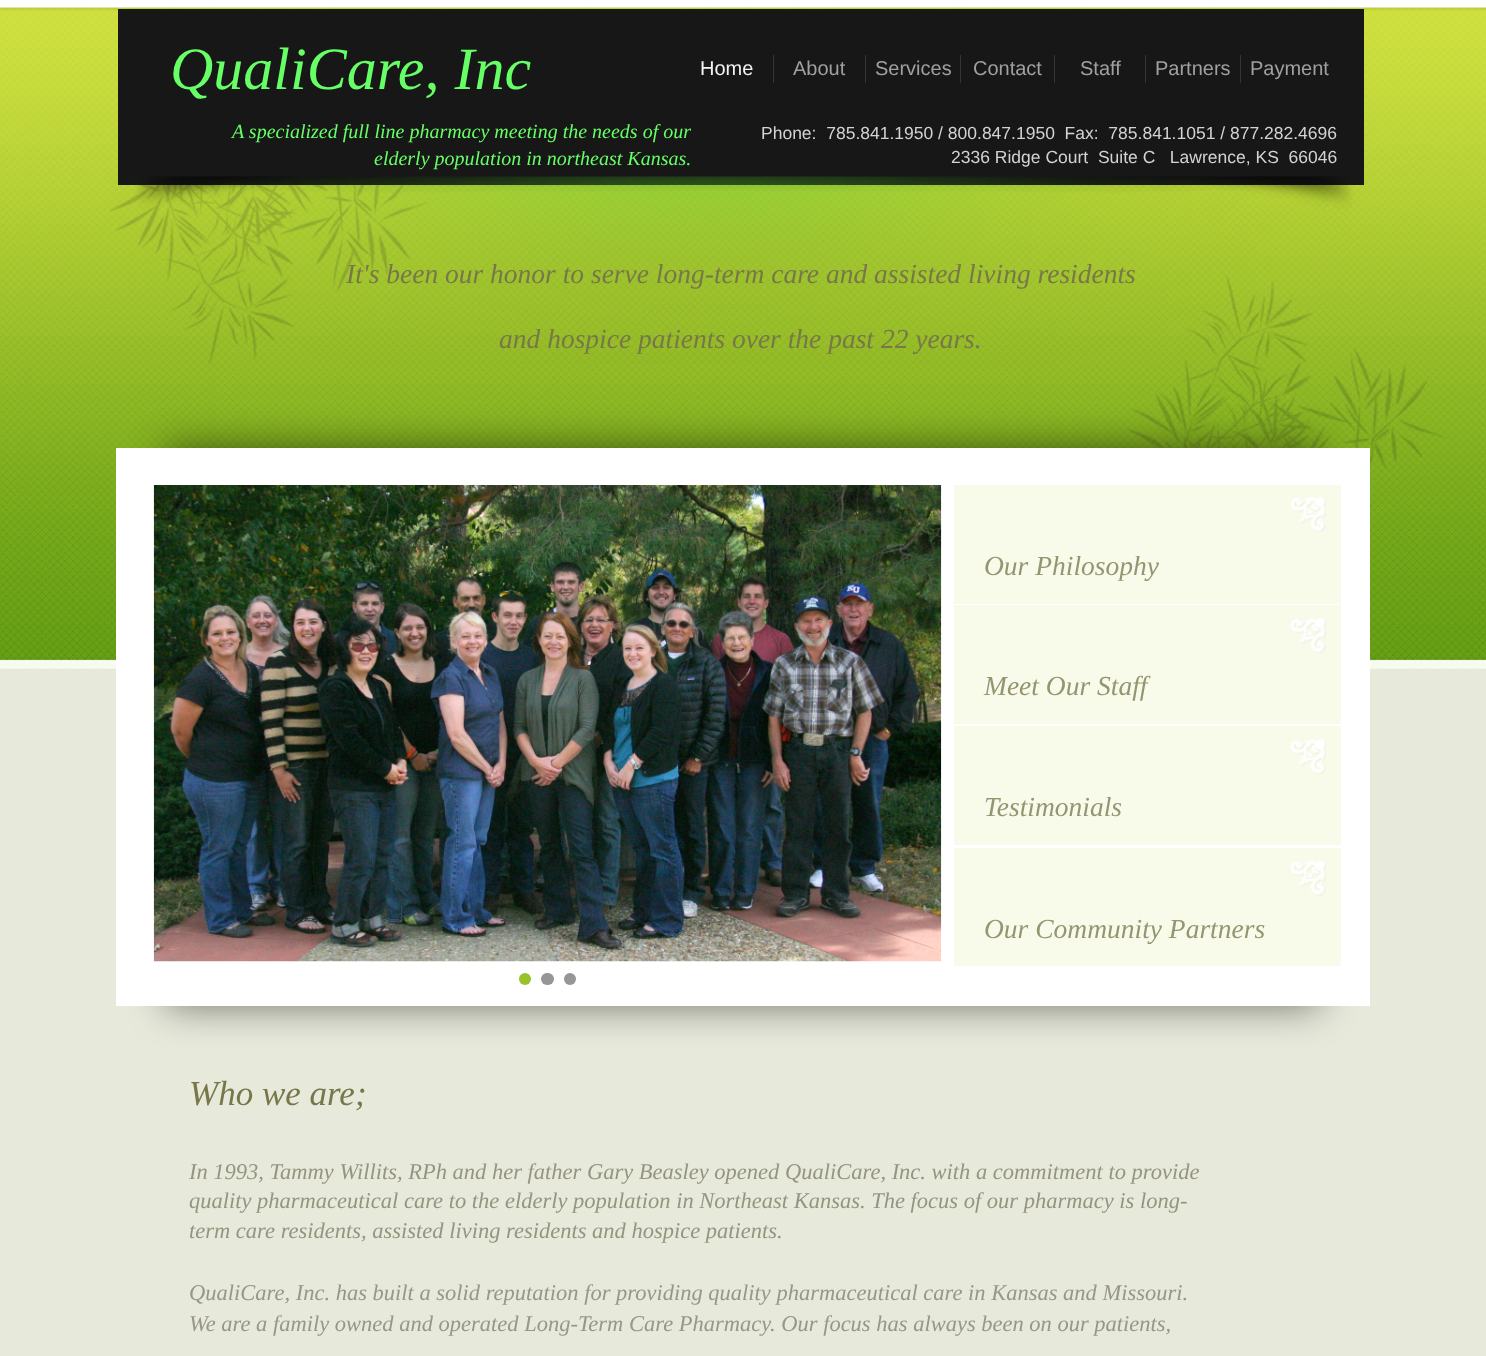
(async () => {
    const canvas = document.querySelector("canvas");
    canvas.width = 1486;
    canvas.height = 1356;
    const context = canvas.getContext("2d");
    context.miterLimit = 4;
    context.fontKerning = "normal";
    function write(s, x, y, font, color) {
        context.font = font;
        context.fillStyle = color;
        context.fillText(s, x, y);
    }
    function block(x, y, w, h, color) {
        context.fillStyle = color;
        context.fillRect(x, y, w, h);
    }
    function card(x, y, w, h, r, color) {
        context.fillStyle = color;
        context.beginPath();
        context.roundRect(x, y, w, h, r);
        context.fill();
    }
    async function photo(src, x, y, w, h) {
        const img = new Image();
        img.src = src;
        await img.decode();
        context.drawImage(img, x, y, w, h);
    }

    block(0, 0, 1486, 1356, "rgb(231, 233, 219)");
    await photo("media/1.png", 0, 0, 1486, 669);
    block(118, 9, 1246, 176, "rgb(23, 23, 23)");
    write("QualiCare, Inc", 170, 89, "italic 60px Liberation Serif", "rgb(102, 255, 102)");
    block(773, 55, 1, 28, "rgb(53, 53, 53)");
    write("Home", 700, 75, "20px Liberation Sans", "rgb(242, 242, 240)");
    block(865, 55, 1, 28, "rgb(53, 53, 53)");
    write("About", 793, 75, "20px Liberation Sans", "rgb(160, 160, 160)");
    block(960, 55, 1, 28, "rgb(53, 53, 53)");
    write("Services", 875, 75, "20px Liberation Sans", "rgb(160, 160, 160)");
    block(1054, 55, 1, 28, "rgb(53, 53, 53)");
    write("Contact", 973, 75, "20px Liberation Sans", "rgb(160, 160, 160)");
    block(1145, 55, 1, 28, "rgb(53, 53, 53)");
    write("Staff", 1080, 75, "20px Liberation Sans", "rgb(160, 160, 160)");
    block(1240, 55, 1, 28, "rgb(53, 53, 53)");
    write("Partners", 1155, 75, "20px Liberation Sans", "rgb(160, 160, 160)");
    write("Payment", 1250, 75, "20px Liberation Sans", "rgb(160, 160, 160)");
    write("A specialized full line pharmacy meeting the needs of our", 232, 138, "italic 20px Liberation Serif", "rgb(102, 255, 102)");
    write("elderly population in northeast Kansas.", 374, 165, "italic 20px Liberation Serif", "rgb(102, 255, 102)");
    write("Phone:  785.841.1950 / 800.847.1950  Fax:  785.841.1051 / 877.282.4696", 761, 139, "17.5px Liberation Sans", "rgb(211, 211, 211)");
    write("2336 Ridge Court  Suite C   Lawrence, KS  66046", 951, 163, "17.5px Liberation Sans", "rgb(211, 211, 211)");
    await photo("media/2.png", 109, 176, 1244, 188);
    write("It's been our honor to serve long-term care and assisted living residents", 346, 283, "italic 27.5px Liberation Serif", "rgb(119, 119, 74)");
    write("and hospice patients over the past 22 years.", 499, 348, "italic 27.5px Liberation Serif", "rgb(119, 119, 74)");
    context.fillStyle = "rgba(0, 0, 0, 0.5)";
    context.filter = "blur(19px)";
    context.beginPath();
    context.rect(166, 448, 1154, 558);
    context.fill();
    context.filter = "none";
    block(116, 448, 1254, 558, "rgb(255, 255, 255)");
    block(954, 485, 387, 119, "rgb(248, 251, 233)");
    await photo("media/5.png", 1290, 496, 36, 36);
    await photo("media/3.png", 1127, 276, 321, 231);
    await photo("media/4.png", 153, 485, 789, 477);
    context.fillStyle = "rgb(152, 194, 42)";
    context.beginPath();
    context.arc(525, 979, 6, 0, Math.PI * 2);
    context.fill();
    card(541, 973, 13, 12, 6, "rgb(150, 150, 150)");
    context.beginPath();
    context.arc(570, 979, 6, 0, Math.PI * 2);
    context.fill();
    write("Our Philosophy", 984, 575, "italic 27.5px Liberation Serif", "rgb(149, 149, 113)");
    block(954, 605, 387, 119, "rgb(248, 251, 233)");
    await photo("media/6.png", 1290, 618, 36, 35);
    write("Meet Our Staff", 984, 695, "italic 27.5px Liberation Serif", "rgb(149, 149, 113)");
    block(954, 726, 387, 119, "rgb(248, 251, 233)");
    await photo("media/7.png", 1290, 739, 36, 36);
    write("Testimonials", 984, 816, "italic 27.5px Liberation Serif", "rgb(149, 149, 113)");
    block(954, 848, 387, 118, "rgb(248, 251, 233)");
    await photo("media/8.png", 1290, 860, 36, 36);
    write("Our Community Partners", 984, 938, "italic 27.5px Liberation Serif", "rgb(149, 149, 113)");
    write("Who we are;", 189, 1105, "italic 35px Liberation Serif", "rgb(119, 119, 74)");
    write("In 1993, Tammy Willits, RPh and her father Gary Beasley opened QualiCare, Inc. with a commitment to provide", 189, 1179, "italic 22.5px Liberation Serif", "rgb(149, 148, 127)");
    write("quality pharmaceutical care to the elderly population in Northeast Kansas. The focus of our pharmacy is long-", 189, 1208, "italic 22.5px Liberation Serif", "rgb(149, 148, 127)");
    write("term care residents, assisted living residents and hospice patients.", 189, 1238, "italic 22.5px Liberation Serif", "rgb(149, 148, 127)");
    write("QualiCare, Inc. has built a solid reputation for providing quality pharmaceutical care in Kansas and Missouri.", 189, 1300, "italic 22.5px Liberation Serif", "rgb(151, 150, 136)");
    write("We are a family owned and operated Long-Term Care Pharmacy. Our focus has always been on our patients,", 189, 1331, "italic 22.5px Liberation Serif", "rgb(151, 150, 136)");
})();
